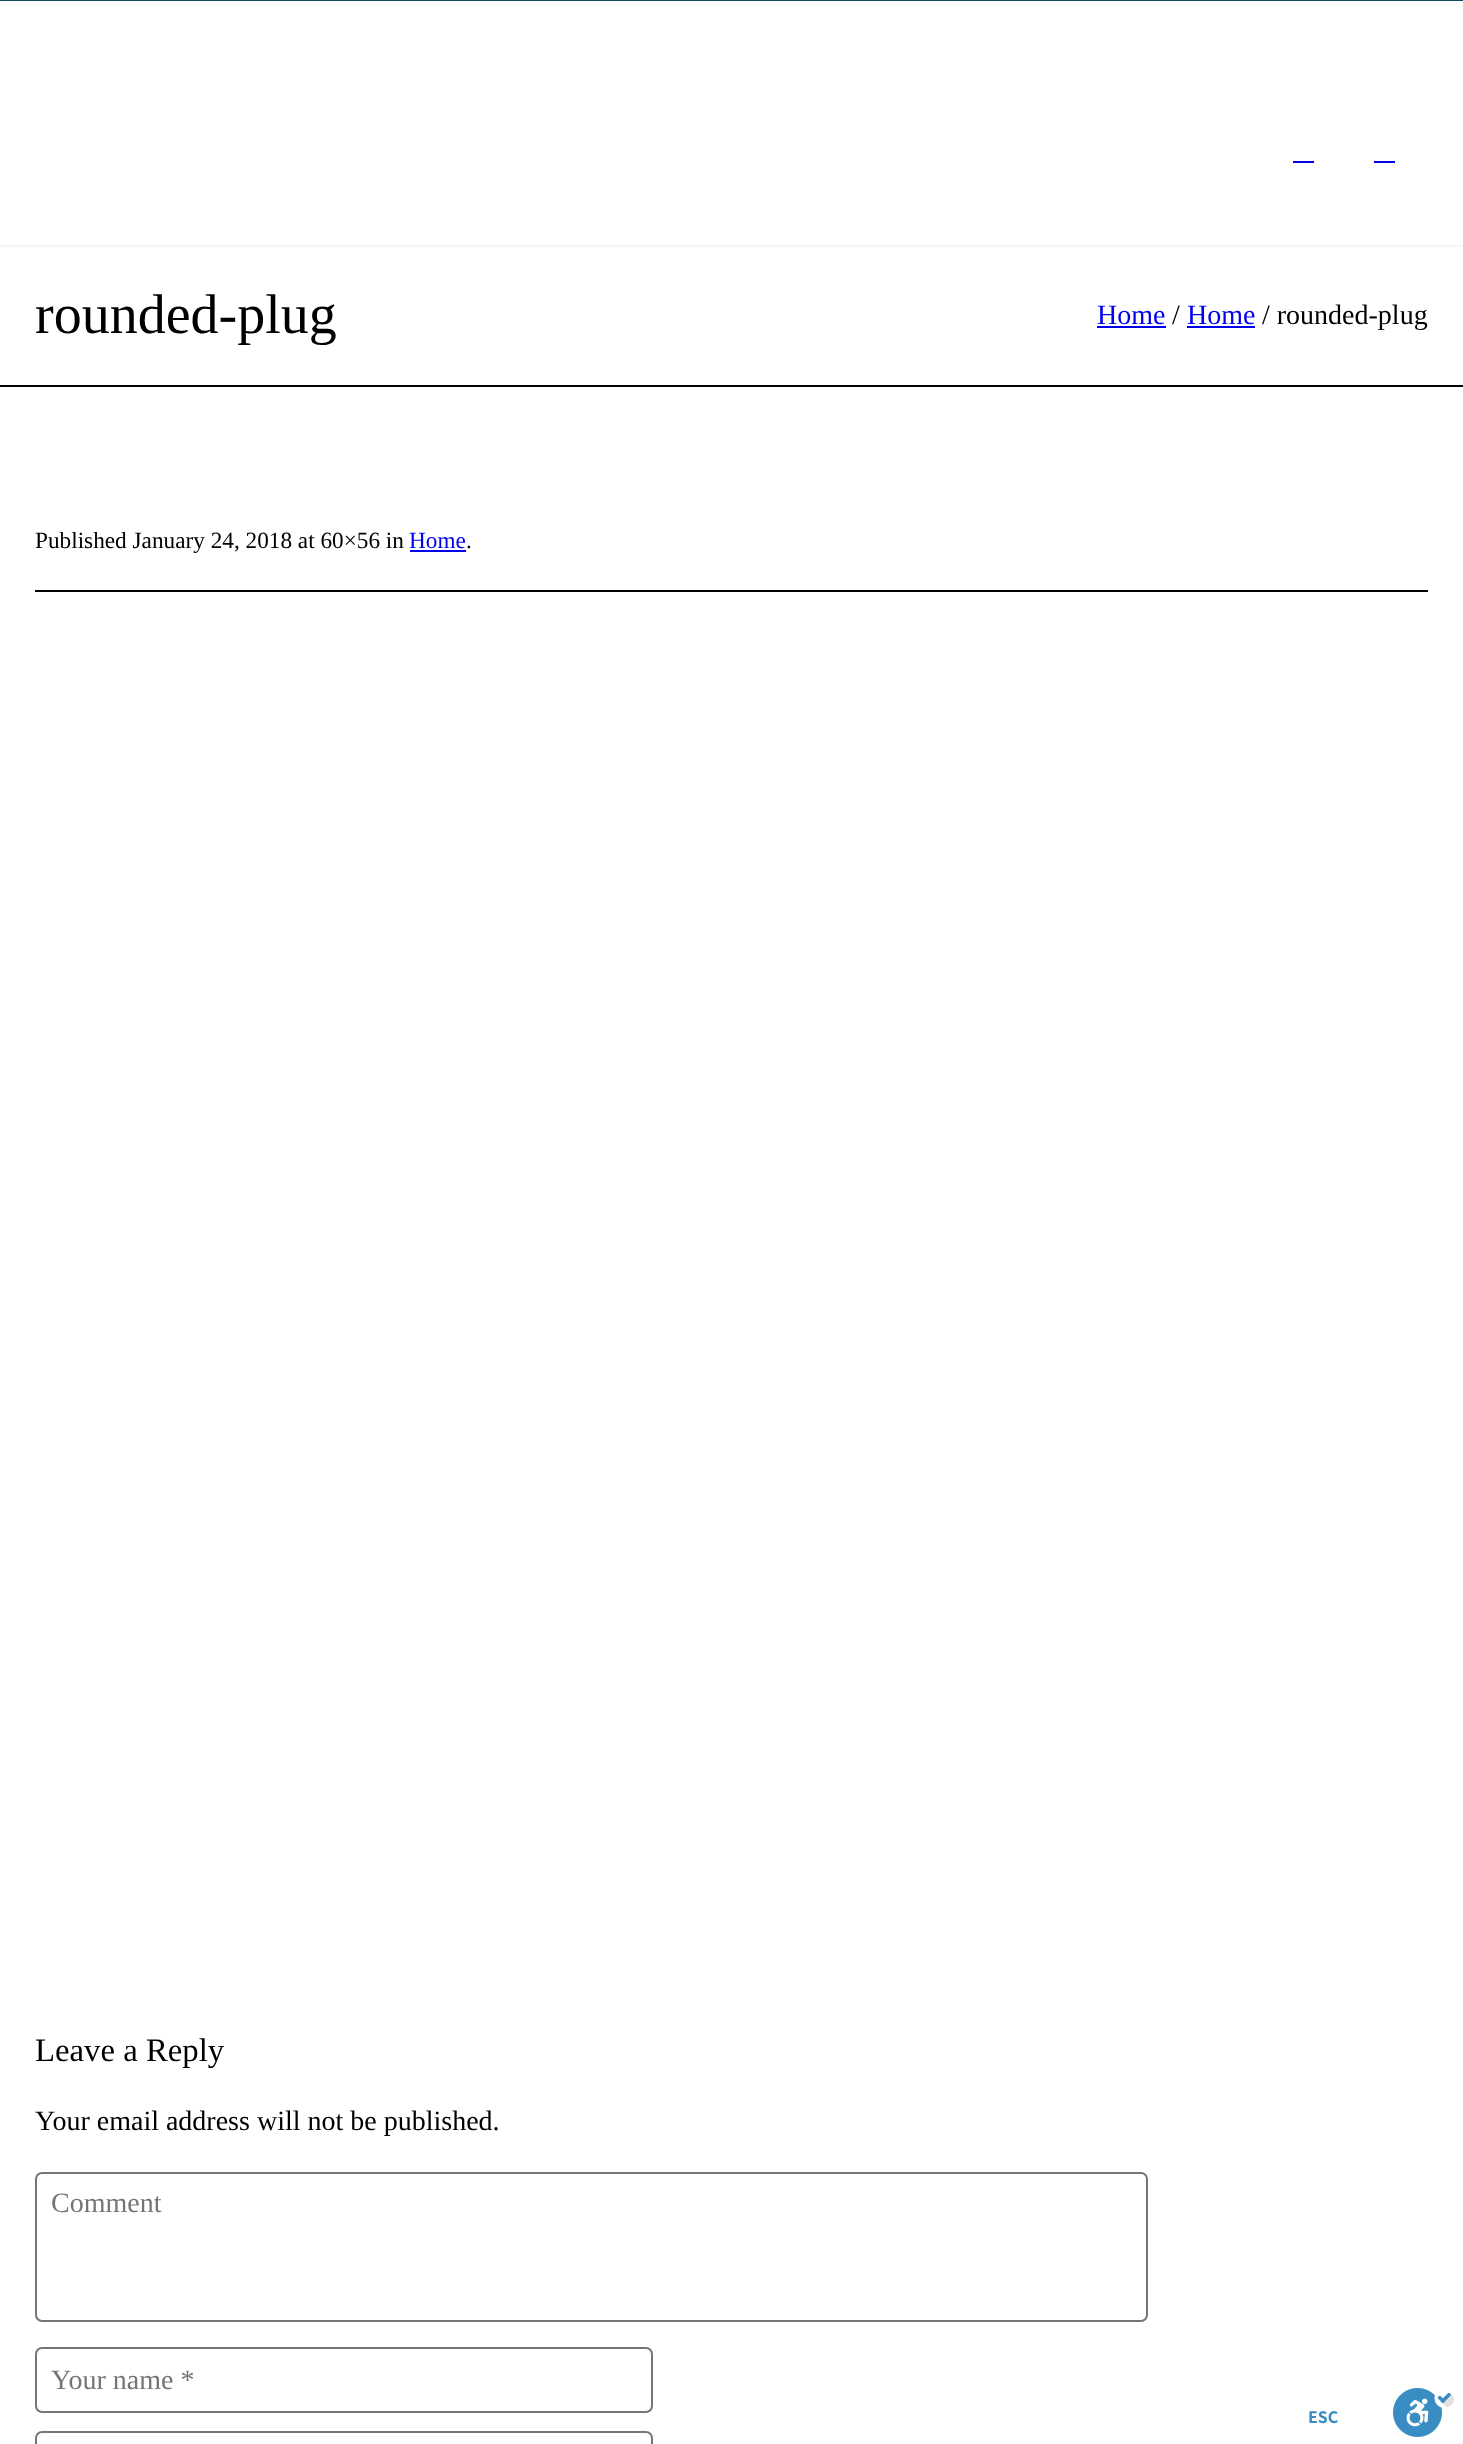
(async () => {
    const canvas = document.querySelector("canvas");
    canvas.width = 1463;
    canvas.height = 2444;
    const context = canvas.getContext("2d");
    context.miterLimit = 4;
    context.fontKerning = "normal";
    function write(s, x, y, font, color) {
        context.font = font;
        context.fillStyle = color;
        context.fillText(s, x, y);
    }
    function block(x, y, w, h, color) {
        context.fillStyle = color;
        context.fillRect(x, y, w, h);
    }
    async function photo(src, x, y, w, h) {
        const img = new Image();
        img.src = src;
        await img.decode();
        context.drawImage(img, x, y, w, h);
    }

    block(0, 0, 1463, 2444, "rgb(255, 255, 255)");
    context.save();
    context.beginPath();
    context.rect(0, 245, 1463, 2);
    context.clip();
    context.fillStyle = "rgba(0, 0, 0, 0.05)";
    context.filter = "blur(1px)";
    context.beginPath();
    context.rect(0, 2, 1463, 245);
    context.fill();
    context.filter = "none";
    context.restore();
    block(1293, 161, 21, 2, "rgb(0, 0, 238)");
    block(1374, 161, 21, 2, "rgb(0, 0, 238)");
    block(0, 385, 1463, 2, "rgb(0, 0, 0)");
    write("rounded-plug", 35, 333, "56px Liberation Serif", "rgb(0, 0, 0)");
    write("Home", 1097, 324, "28px Liberation Serif", "rgb(0, 0, 238)");
    block(1097, 326, 69, 2, "rgb(0, 0, 238)");
    write("/", 1172, 324, "28px Liberation Serif", "rgb(0, 0, 0)");
    write("Home", 1187, 324, "28px Liberation Serif", "rgb(0, 0, 238)");
    block(1187, 326, 68, 2, "rgb(0, 0, 238)");
    write("/ rounded-plug", 1262, 324, "28px Liberation Serif", "rgb(0, 0, 0)");
    block(35, 590, 1393, 2, "rgb(0, 0, 0)");
    write("Published January 24, 2018 at 60×56 in", 35, 548, "23.25px Liberation Serif", "rgb(0, 0, 0)");
    write("Home", 409, 548, "23.25px Liberation Serif", "rgb(0, 0, 238)");
    block(410, 550, 56, 2, "rgb(0, 0, 238)");
    write(".", 466, 548, "23.25px Liberation Serif", "rgb(0, 0, 0)");
    write("Leave a Reply", 35, 2061, "32.75px Liberation Serif", "rgb(0, 0, 0)");
    write("Your email address will not be published.", 35, 2130, "28px Liberation Serif", "rgb(0, 0, 0)");
    context.beginPath();
    context.roundRect(36, 2173, 1111, 148, 6);
    context.strokeStyle = "rgb(118, 118, 118)";
    context.lineWidth = 2;
    context.stroke();
    write("Comment", 51, 2212, "28px Liberation Serif", "rgb(117, 117, 117)");
    context.beginPath();
    context.roundRect(36, 2348, 616, 64, 6);
    context.stroke();
    write("Your name *", 51, 2389, "28px Liberation Serif", "rgb(117, 117, 117)");
    context.beginPath();
    context.roundRect(36, 2432, 616, 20, 6);
    context.stroke();
    block(0, 0, 1463, 1, "rgb(21, 73, 95)");
    write("ESC", 1308, 2423, "bold 18px Assistant", "rgb(58, 141, 194)");
    await photo("media/1.png", 1393, 2388, 62, 49);
})();
